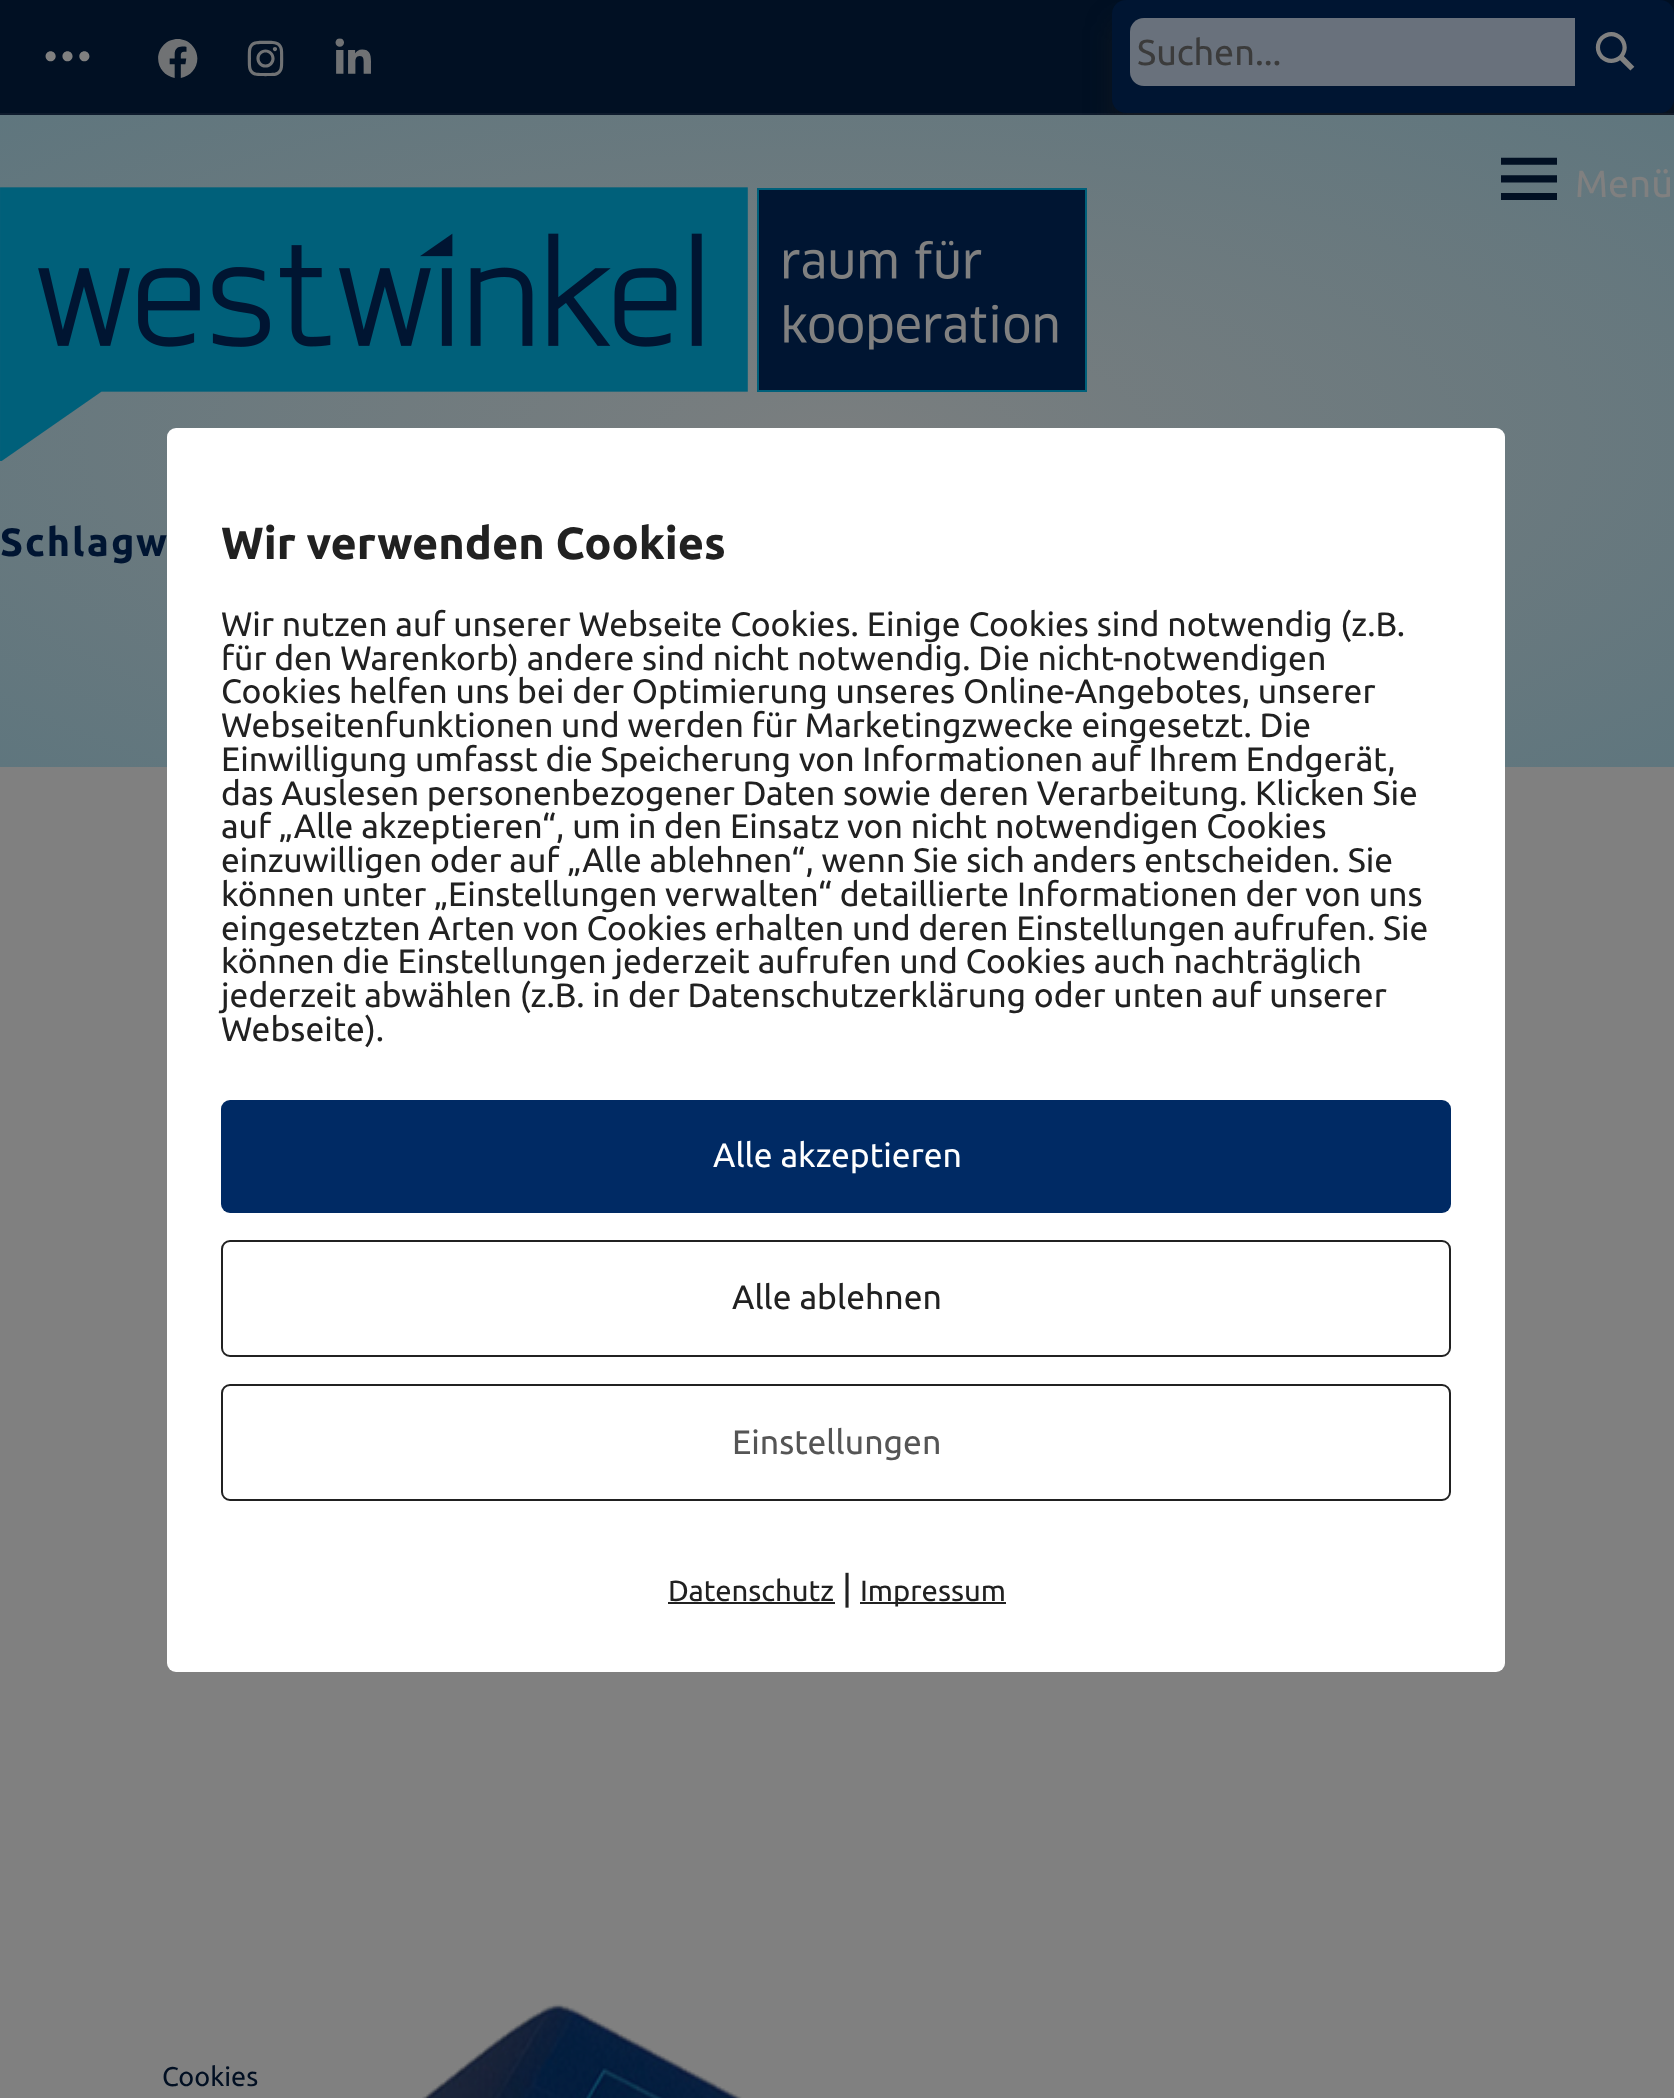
(async () => {
    const canvas = document.querySelector("canvas");
    canvas.width = 1674;
    canvas.height = 2098;
    const context = canvas.getContext("2d");
    context.miterLimit = 4;
    context.fontKerning = "normal";
    function write(s, x, y, font, color) {
        context.font = font;
        context.fillStyle = color;
        context.fillText(s, x, y);
    }
    function block(x, y, w, h, color) {
        context.fillStyle = color;
        context.fillRect(x, y, w, h);
    }
    function card(x, y, w, h, r, color) {
        context.fillStyle = color;
        context.beginPath();
        context.roundRect(x, y, w, h, r);
        context.fill();
    }
    async function photo(src, x, y, w, h) {
        const img = new Image();
        img.src = src;
        await img.decode();
        context.drawImage(img, x, y, w, h);
    }
    let gradient;

    block(0, 0, 1674, 2098, "rgb(128, 128, 128)");
    block(0, 0, 1674, 113, "rgb(1, 16, 35)");
    block(0, 113, 1674, 2, "rgb(14, 27, 45)");
    await photo("media/1.png", 45, 51, 45, 11);
    await photo("media/2.png", 158, 39, 40, 39);
    await photo("media/3.png", 247, 40, 37, 37);
    await photo("media/4.png", 335, 38, 36, 36);
    context.fillStyle = "rgba(25, 25, 25, 0.5)";
    context.filter = "blur(13.5px)";
    context.beginPath();
    context.roundRect(1112, 20, 562, 113, 14);
    context.fill();
    context.filter = "none";
    card(1112, 0, 562, 113, 14, "rgb(0, 21, 50)");
    card(1130, 18, 526, 68, 14, "rgb(105, 113, 124)");
    write("Suchen...", 1137, 65, "36px Ubuntu", "rgb(59, 59, 59)");
    block(1575, 18, 81, 68, "rgb(0, 21, 50)");
    await photo("media/5.png", 1595, 32, 40, 39);
    gradient = context.createRadialGradient(837, 1132.63, 0, 837, 1132.63, 1184);
    gradient.addColorStop(0, "rgb(122, 126, 127)");
    gradient.addColorStop(1, "rgb(95, 118, 126)");
    context.fillStyle = gradient;
    context.beginPath();
    context.rect(0, 115, 1674, 652);
    context.save();
    context.clip();
    context.scale(1, 461 / 1184);
    context.fillRect(0, 0, 1674, 5389);
    context.restore();
    await photo("media/6.png", 1501, 157, 56, 43);
    write("Menü", 1575, 197, "38px Ubuntu", "rgb(128, 128, 128)");
    await photo("media/7.png", 0, 187, 1087, 274);
    context.letterSpacing = "2px";
    write("Schlagw", 0, 556, "bold 39.5px Ubuntu", "rgb(0, 21, 50)");
    await photo("media/8.png", 422, 2004, 320, 94);
    card(167, 428, 1338, 1244, 9, "rgb(255, 255, 255)");
    context.letterSpacing = "0px";
    write("Wir verwenden Cookies", 221, 559, "bold 45px Ubuntu", "rgb(33, 33, 33)");
    write("Wir nutzen auf unserer Webseite Cookies. Einige Cookies sind notwendig (z.B.", 221, 636, "33.75px Ubuntu", "rgb(33, 33, 33)");
    write("für den Warenkorb) andere sind nicht notwendig. Die nicht-notwendigen", 221, 670, "33.75px Ubuntu", "rgb(33, 33, 33)");
    write("Cookies helfen uns bei der Optimierung unseres Online-Angebotes, unserer", 221, 703, "33.75px Ubuntu", "rgb(33, 33, 33)");
    write("Webseitenfunktionen und werden für Marketingzwecke eingesetzt. Die", 221, 737, "33.75px Ubuntu", "rgb(33, 33, 33)");
    write("Einwilligung umfasst die Speicherung von Informationen auf Ihrem Endgerät,", 221, 771, "33.75px Ubuntu", "rgb(33, 33, 33)");
    write("das Auslesen personenbezogener Daten sowie deren Verarbeitung. Klicken Sie", 221, 805, "33.75px Ubuntu", "rgb(33, 33, 33)");
    write("auf „Alle akzeptieren“, um in den Einsatz von nicht notwendigen Cookies", 221, 838, "33.75px Ubuntu", "rgb(33, 33, 33)");
    write("einzuwilligen oder auf „Alle ablehnen“, wenn Sie sich anders entscheiden. Sie", 221, 872, "33.75px Ubuntu", "rgb(33, 33, 33)");
    write("können unter „Einstellungen verwalten“ detaillierte Informationen der von uns", 221, 906, "33.75px Ubuntu", "rgb(33, 33, 33)");
    write("eingesetzten Arten von Cookies erhalten und deren Einstellungen aufrufen. Sie", 221, 940, "33.75px Ubuntu", "rgb(33, 33, 33)");
    write("können die Einstellungen jederzeit aufrufen und Cookies auch nachträglich", 221, 973, "33.75px Ubuntu", "rgb(33, 33, 33)");
    write("jederzeit abwählen (z.B. in der Datenschutzerklärung oder unten auf unserer", 221, 1007, "33.75px Ubuntu", "rgb(33, 33, 33)");
    write("Webseite).", 221, 1041, "33.75px Ubuntu", "rgb(33, 33, 33)");
    card(221, 1100, 1230, 113, 9, "rgb(0, 42, 100)");
    write("Alle akzeptieren", 713, 1167, "33.75px Ubuntu", "rgb(255, 255, 255)");
    context.beginPath();
    context.roundRect(222, 1241, 1228, 115, 8);
    context.strokeStyle = "rgb(33, 33, 33)";
    context.lineWidth = 2;
    context.stroke();
    write("Alle ablehnen", 732, 1309, "33.75px Ubuntu", "rgb(33, 33, 33)");
    context.beginPath();
    context.roundRect(222, 1385, 1228, 115, 8);
    context.stroke();
    write("Einstellungen", 732, 1454, "33.75px Ubuntu", "rgb(85, 85, 85)");
    write("Datenschutz", 668, 1601, "29.25px Ubuntu", "rgb(33, 33, 33)");
    block(668, 1602, 167, 2, "rgb(33, 33, 33)");
    write("|", 842, 1601, "36px Ubuntu", "rgb(33, 33, 33)");
    block(860, 1602, 146, 2, "rgb(33, 33, 33)");
    write("Impressum", 860, 1601, "29.25px Ubuntu", "rgb(33, 33, 33)");
    write("Cookies", 162, 2086, "27px Ubuntu", "rgb(1, 15, 34)");
})();
